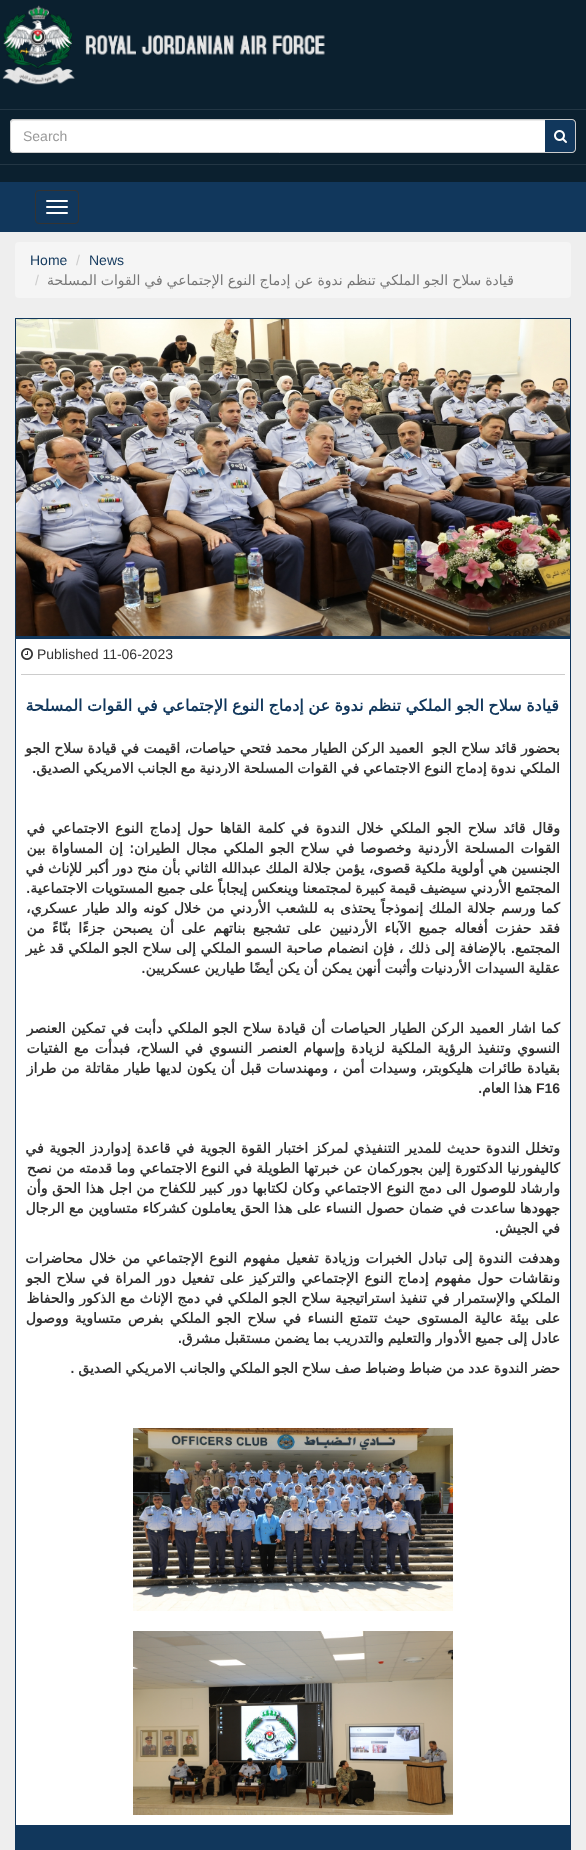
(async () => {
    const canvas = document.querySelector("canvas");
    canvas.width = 586;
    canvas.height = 1850;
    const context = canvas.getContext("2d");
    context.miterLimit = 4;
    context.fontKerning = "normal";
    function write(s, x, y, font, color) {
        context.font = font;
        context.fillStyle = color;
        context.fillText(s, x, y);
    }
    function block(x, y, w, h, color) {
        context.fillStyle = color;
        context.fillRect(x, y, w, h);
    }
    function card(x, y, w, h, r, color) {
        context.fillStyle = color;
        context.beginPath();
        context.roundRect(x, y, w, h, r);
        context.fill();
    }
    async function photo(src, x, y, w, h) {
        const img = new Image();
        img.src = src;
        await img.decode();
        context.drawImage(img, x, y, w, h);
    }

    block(0, 0, 586, 1850, "rgb(11, 32, 47)");
    await photo("media/1.png", 2, 5, 323, 80);
    block(0, 164, 586, 1, "rgb(35, 54, 68)");
    block(0, 109, 586, 1, "rgb(35, 54, 68)");
    context.fillStyle = "rgb(255, 255, 255)";
    context.beginPath();
    context.roundRect(10, 119, 536, 34, [4, 0, 0, 4]);
    context.fill();
    context.fillStyle = "rgb(236, 236, 236)";
    context.beginPath();
    context.moveTo(14, 121);
    context.lineTo(545, 121);
    context.lineTo(545, 120);
    context.lineTo(14, 120);
    context.bezierCurveTo(12, 120, 11, 122, 11, 124);
    context.bezierCurveTo(11, 122, 12, 121, 14, 121);
    context.closePath();
    context.fill();
    context.beginPath();
    context.roundRect(10.5, 119.5, 535, 33, [3.5, 0, 0, 3.5]);
    context.strokeStyle = "rgb(204, 204, 204)";
    context.stroke();
    context.fillStyle = "rgb(17, 55, 92)";
    context.beginPath();
    context.roundRect(545, 120, 30, 32, [0, 3, 3, 0]);
    context.fill();
    context.fillStyle = "rgb(204, 204, 204)";
    context.beginPath();
    context.moveTo(545, 119);
    context.lineTo(572, 119);
    context.bezierCurveTo(574, 119, 576, 121, 576, 123);
    context.lineTo(576, 149);
    context.bezierCurveTo(576, 151, 574, 153, 572, 153);
    context.lineTo(545, 153);
    context.closePath();
    context.moveTo(545, 120);
    context.lineTo(572, 120);
    context.bezierCurveTo(573.5, 120, 575, 121.5, 575, 123);
    context.lineTo(575, 149);
    context.bezierCurveTo(575, 150.5, 573.5, 152, 572, 152);
    context.lineTo(545, 152);
    context.closePath();
    context.fill("evenodd");
    await photo("media/2.png", 554, 130, 13, 13);
    write("Search", 23, 141, "14px Liberation Sans", "rgb(153, 153, 153)");
    block(0, 182, 586, 50, "rgb(17, 55, 92)");
    context.beginPath();
    context.roundRect(35.5, 190.5, 43, 33, 3.5);
    context.strokeStyle = "rgb(51, 51, 51)";
    context.stroke();
    card(46, 200, 22, 2, 1, "rgb(255, 255, 255)");
    card(46, 206, 22, 2, 1, "rgb(255, 255, 255)");
    card(46, 212, 22, 2, 1, "rgb(255, 255, 255)");
    block(0, 232, 586, 1618, "rgb(238, 238, 238)");
    card(15, 242, 556, 56, 4, "rgb(245, 245, 245)");
    write("News", 89, 265, "14px Liberation Sans", "rgb(17, 55, 92)");
    write("/", 76, 265, "14px Liberation Sans", "rgb(204, 204, 204)");
    write("Home", 30, 265, "14px Liberation Sans", "rgb(17, 55, 92)");
    context.wordSpacing = "-0.5px";
    context.direction = "rtl";
    write("قيادة سلاح الجو الملكي تنظم ندوة عن إدماج النوع الإجتماعي في القوات المسلحة", 514, 285, "14px DejaVu Sans", "rgb(119, 119, 119)");
    context.wordSpacing = "0px";
    context.direction = "ltr";
    write("/", 35, 285, "14px Liberation Sans", "rgb(204, 204, 204)");
    block(16, 639, 554, 1186, "rgb(255, 255, 255)");
    context.strokeStyle = "rgb(17, 55, 92)";
    context.strokeRect(15.5, 318.5, 555, 1507);
    block(16, 636, 554, 3, "rgb(17, 55, 92)");
    await photo("media/3.png", 16, 319, 554, 317);
    write("Published 11-06-2023", 37, 659, "14px Liberation Sans", "rgb(51, 51, 51)");
    await photo("media/4.png", 21, 648, 12, 12);
    block(21, 674, 544, 1, "rgb(204, 204, 204)");
    context.wordSpacing = "-0.6px";
    context.direction = "rtl";
    write("قيادة سلاح الجو الملكي تنظم ندوة عن إدماج النوع الإجتماعي في القوات المسلحة", 559, 711, "bold 16px DejaVu Sans", "rgb(17, 55, 92)");
    context.wordSpacing = "-0.1px";
    write("بحضور قائد سلاح الجو  العميد الركن الطيار محمد فتحي حياصات، اقيمت في قيادة سلاح الجو", 560, 753, "bold 14px DejaVu Sans", "rgb(51, 51, 51)");
    context.wordSpacing = "-0.6px";
    write("الملكي ندوة إدماج النوع الاجتماعي في القوات المسلحة الاردنية مع الجانب الامريكي الصديق.", 560, 773, "bold 14px DejaVu Sans", "rgb(51, 51, 51)");
    context.wordSpacing = "2.1px";
    write("وقال قائد سلاح الجو الملكي خلال الندوة في كلمة القاها حول إدماج النوع الاجتماعي في", 560, 833, "bold 14px DejaVu Sans", "rgb(51, 51, 51)");
    context.wordSpacing = "1.8px";
    write("القوات المسلحة الأردنية وخصوصا في سلاح الجو الملكي مجال الطيران: إن المساواة بين", 560, 853, "bold 14px DejaVu Sans", "rgb(51, 51, 51)");
    context.wordSpacing = "-0.25px";
    write("الجنسين هي أولوية ملكية قصوى، يؤمن جلالة الملك عبدالله الثاني بأن منح دور أكبر للإناث في", 560, 873, "bold 14px DejaVu Sans", "rgb(51, 51, 51)");
    context.wordSpacing = "-0.5px";
    write("المجتمع الأردني سيضيف قيمة كبيرة لمجتمعنا وينعكس إيجاباً على جميع المستويات الاجتماعية.", 560, 893, "bold 14px DejaVu Sans", "rgb(51, 51, 51)");
    context.wordSpacing = "1px";
    write("كما ورسم جلالة الملك إنموذجاً يحتذى به للشعب الأردني من خلال كونه والد طيار عسكري،", 560, 913, "bold 14px DejaVu Sans", "rgb(51, 51, 51)");
    context.wordSpacing = "2.9px";
    write("فقد حفزت أفعاله جميع الآباء الأردنيين على تشجيع بناتهم على أن يصبحن جزءًا بنّاءً من", 560, 933, "bold 14px DejaVu Sans", "rgb(51, 51, 51)");
    context.wordSpacing = "0.2px";
    write("المجتمع. بالإضافة إلى ذلك ، فإن انضمام صاحبة السمو الملكي إلى سلاح الجو الملكي قد غير", 560, 953, "bold 14px DejaVu Sans", "rgb(51, 51, 51)");
    context.wordSpacing = "-0.6px";
    write("عقلية السيدات الأردنيات وأثبت أنهن يمكن أن يكن أيضًا طيارين عسكريين.", 560, 973, "bold 14px DejaVu Sans", "rgb(51, 51, 51)");
    context.wordSpacing = "0.8px";
    write("كما اشار العميد الركن الطيار الحياصات أن قيادة سلاح الجو الملكي دأبت في تمكين العنصر", 560, 1033, "bold 14px DejaVu Sans", "rgb(51, 51, 51)");
    context.wordSpacing = "1.6px";
    write("النسوي وتنفيذ الرؤية الملكية لزيادة وإسهام العنصر النسوي في السلاح، فبدأت مع الفتيات", 560, 1053, "bold 14px DejaVu Sans", "rgb(51, 51, 51)");
    context.wordSpacing = "0.5px";
    write("بقيادة طائرات هليكوبتر، وسيدات أمن ، ومهندسات قبل أن يكون لديها طيار مقاتلة من طراز", 560, 1073, "bold 14px DejaVu Sans", "rgb(51, 51, 51)");
    context.wordSpacing = "0px";
    context.direction = "ltr";
    write("F16", 536, 1093, "bold 14px Liberation Sans", "rgb(51, 51, 51)");
    context.wordSpacing = "-1px";
    context.direction = "rtl";
    write("هذا العام.", 532, 1093, "bold 14px DejaVu Sans", "rgb(51, 51, 51)");
    context.wordSpacing = "1px";
    write("وتخلل الندوة حديث للمدير التنفيذي لمركز اختبار القوة الجوية في قاعدة إدواردز الجوية في", 560, 1153, "bold 14px DejaVu Sans", "rgb(51, 51, 51)");
    context.wordSpacing = "0px";
    write("كاليفورنيا الدكتورة إلين بجوركمان عن خبرتها الطويلة في النوع الاجتماعي وما قدمته من نصح", 560, 1173, "bold 14px DejaVu Sans", "rgb(51, 51, 51)");
    context.wordSpacing = "0.1px";
    write("وارشاد للوصول الى دمج النوع الاجتماعي وكان لكتابها دور كبير للكفاح من اجل هذا الحق وأن", 560, 1193, "bold 14px DejaVu Sans", "rgb(51, 51, 51)");
    context.wordSpacing = "0px";
    write("جهودها ساعدت في ضمان حصول النساء على هذا الحق يعاملون كشركاء متساوين مع الرجال", 560, 1213, "bold 14px DejaVu Sans", "rgb(51, 51, 51)");
    context.wordSpacing = "-1px";
    write("في الجيش.", 560, 1233, "bold 14px DejaVu Sans", "rgb(51, 51, 51)");
    context.wordSpacing = "1.5px";
    write("وهدفت الندوة إلى تبادل الخبرات وزيادة تفعيل مفهوم النوع الإجتماعي من خلال محاضرات", 560, 1263, "bold 14px DejaVu Sans", "rgb(51, 51, 51)");
    context.wordSpacing = "1.25px";
    write("ونقاشات حول مفهوم إدماج النوع الإجتماعي والتركيز على تفعيل دور المراة في سلاح الجو", 560, 1283, "bold 14px DejaVu Sans", "rgb(51, 51, 51)");
    context.wordSpacing = "0.1px";
    write("الملكي والإستمرار في تنفيذ استراتيجية سلاح الجو الملكي في دمج الإناث مع الذكور والحفاظ", 560, 1303, "bold 14px DejaVu Sans", "rgb(51, 51, 51)");
    context.wordSpacing = "1.9px";
    write("على بيئة عالية المستوى حيث تتمتع النساء في سلاح الجو الملكي بفرص متساوية ووصول", 560, 1323, "bold 14px DejaVu Sans", "rgb(51, 51, 51)");
    context.wordSpacing = "-0.6px";
    write("عادل إلى جميع الأدوار والتعليم والتدريب بما يضمن مستقبل مشرق.", 560, 1343, "bold 14px DejaVu Sans", "rgb(51, 51, 51)");
    write("حضر الندوة عدد من ضباط وضباط صف سلاح الجو الملكي والجانب الامريكي الصديق .", 560, 1373, "bold 14px DejaVu Sans", "rgb(51, 51, 51)");
    await photo("media/5.png", 133, 1428, 320, 183);
    await photo("media/6.png", 133, 1631, 320, 184);
    context.strokeRect(15.5, 1826.5, 555, 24);
    block(16, 1827, 554, 23, "rgb(17, 55, 92)");
})();
